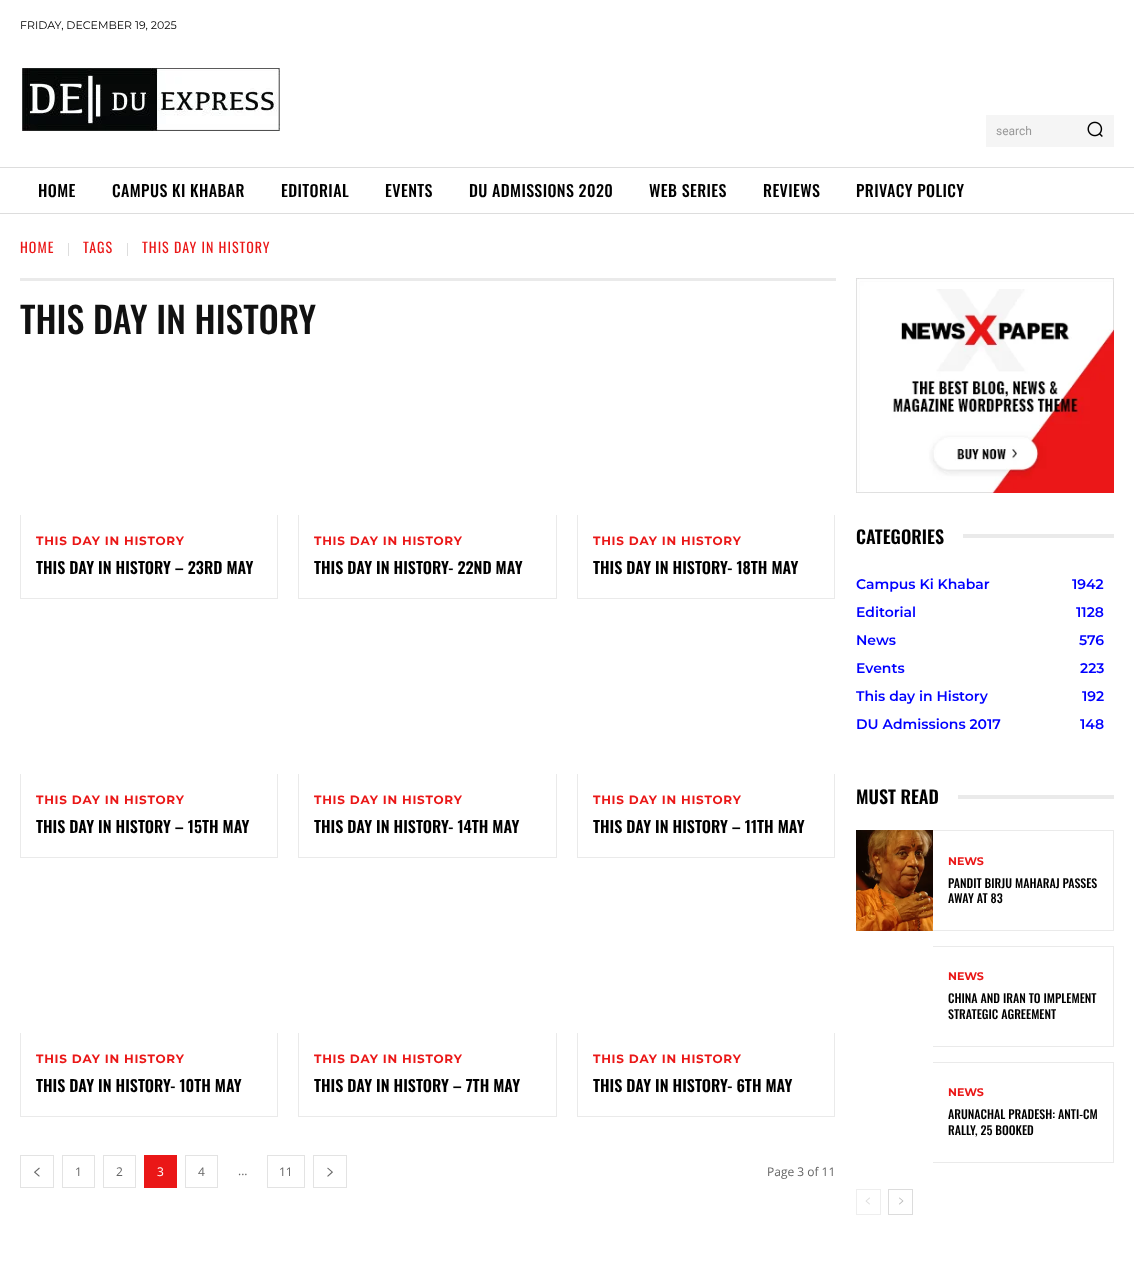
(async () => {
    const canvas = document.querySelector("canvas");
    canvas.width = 1134;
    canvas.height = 1263;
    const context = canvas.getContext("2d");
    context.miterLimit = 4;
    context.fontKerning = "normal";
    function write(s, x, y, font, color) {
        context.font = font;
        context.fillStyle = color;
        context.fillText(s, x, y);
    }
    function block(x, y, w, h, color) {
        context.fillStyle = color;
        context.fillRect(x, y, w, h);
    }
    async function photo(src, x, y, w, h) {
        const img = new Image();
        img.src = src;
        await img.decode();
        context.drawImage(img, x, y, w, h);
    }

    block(0, 0, 1134, 1263, "rgb(255, 255, 255)");
    write("FRIDAY, DECEMBER 19, 2025", 20, 29, "11px Montserrat", "rgb(0, 0, 0)");
    await photo("media/1.png", 22, 68, 258, 63);
    block(986, 115, 128, 32, "rgb(245, 245, 245)");
    write("search", 996, 135, "12px Roboto", "rgb(153, 153, 153)");
    await photo("media/2.png", 1087, 121, 16, 16);
    block(0, 167, 1134, 1, "rgb(221, 221, 221)");
    block(0, 213, 1134, 1, "rgb(221, 221, 221)");
    context.letterSpacing = "0.4px";
    write("HOME", 38, 197, "500 16px Oswald", "rgb(0, 0, 0)");
    write("CAMPUS KI KHABAR", 112, 197, "500 16px Oswald", "rgb(0, 0, 0)");
    write("EDITORIAL", 281, 197, "500 16px Oswald", "rgb(0, 0, 0)");
    write("EVENTS", 385, 197, "500 16px Oswald", "rgb(0, 0, 0)");
    write("DU ADMISSIONS 2020", 469, 197, "500 16px Oswald", "rgb(0, 0, 0)");
    write("WEB SERIES", 649, 197, "500 16px Oswald", "rgb(0, 0, 0)");
    write("REVIEWS", 763, 197, "500 16px Oswald", "rgb(0, 0, 0)");
    write("PRIVACY POLICY", 856, 197, "500 16px Oswald", "rgb(0, 0, 0)");
    context.letterSpacing = "1px";
    write("HOME", 20, 253, "14px Oswald", "rgb(234, 23, 23)");
    block(68, 243, 1, 13, "rgb(221, 221, 221)");
    write("TAGS", 83, 253, "14px Oswald", "rgb(234, 23, 23)");
    block(127, 243, 1, 13, "rgb(221, 221, 221)");
    write("THIS DAY IN HISTORY", 142, 253, "14px Oswald", "rgb(234, 23, 23)");
    block(20, 278, 816, 3, "rgb(234, 234, 234)");
    context.letterSpacing = "0px";
    write("THIS DAY IN HISTORY", 20, 334, "500 36px Oswald", "rgb(17, 17, 17)");
    block(277, 515, 1, 84, "rgb(234, 234, 234)");
    block(20, 598, 258, 1, "rgb(234, 234, 234)");
    block(20, 515, 1, 84, "rgb(234, 234, 234)");
    context.letterSpacing = "0.75px";
    write("THIS DAY IN HISTORY", 36, 545, "bold 12px Montserrat", "rgb(234, 23, 23)");
    context.letterSpacing = "0px";
    write("THIS DAY IN HISTORY – 23RD MAY", 36, 574, "600 16px Oswald", "rgb(0, 0, 0)");
    block(556, 515, 1, 84, "rgb(234, 234, 234)");
    block(298, 598, 259, 1, "rgb(234, 234, 234)");
    block(298, 515, 1, 84, "rgb(234, 234, 234)");
    context.letterSpacing = "0.75px";
    write("THIS DAY IN HISTORY", 314, 545, "bold 12px Montserrat", "rgb(234, 23, 23)");
    context.letterSpacing = "0px";
    write("THIS DAY IN HISTORY- 22ND MAY", 314, 574, "600 16px Oswald", "rgb(0, 0, 0)");
    block(834, 515, 1, 84, "rgb(234, 234, 234)");
    block(577, 598, 258, 1, "rgb(234, 234, 234)");
    block(577, 515, 1, 84, "rgb(234, 234, 234)");
    context.letterSpacing = "0.75px";
    write("THIS DAY IN HISTORY", 593, 545, "bold 12px Montserrat", "rgb(234, 23, 23)");
    context.letterSpacing = "0px";
    write("THIS DAY IN HISTORY- 18TH MAY", 593, 574, "600 16px Oswald", "rgb(0, 0, 0)");
    block(277, 774, 1, 84, "rgb(234, 234, 234)");
    block(20, 857, 258, 1, "rgb(234, 234, 234)");
    block(20, 774, 1, 84, "rgb(234, 234, 234)");
    context.letterSpacing = "0.75px";
    write("THIS DAY IN HISTORY", 36, 804, "bold 12px Montserrat", "rgb(234, 23, 23)");
    context.letterSpacing = "0px";
    write("THIS DAY IN HISTORY – 15TH MAY", 36, 833, "600 16px Oswald", "rgb(0, 0, 0)");
    block(556, 774, 1, 84, "rgb(234, 234, 234)");
    block(298, 857, 259, 1, "rgb(234, 234, 234)");
    block(298, 774, 1, 84, "rgb(234, 234, 234)");
    context.letterSpacing = "0.75px";
    write("THIS DAY IN HISTORY", 314, 804, "bold 12px Montserrat", "rgb(234, 23, 23)");
    context.letterSpacing = "0px";
    write("THIS DAY IN HISTORY- 14TH MAY", 314, 833, "600 16px Oswald", "rgb(0, 0, 0)");
    block(834, 774, 1, 84, "rgb(234, 234, 234)");
    block(577, 857, 258, 1, "rgb(234, 234, 234)");
    block(577, 774, 1, 84, "rgb(234, 234, 234)");
    context.letterSpacing = "0.75px";
    write("THIS DAY IN HISTORY", 593, 804, "bold 12px Montserrat", "rgb(234, 23, 23)");
    context.letterSpacing = "0px";
    write("THIS DAY IN HISTORY – 11TH MAY", 593, 833, "600 16px Oswald", "rgb(0, 0, 0)");
    block(277, 1033, 1, 84, "rgb(234, 234, 234)");
    block(20, 1116, 258, 1, "rgb(234, 234, 234)");
    block(20, 1033, 1, 84, "rgb(234, 234, 234)");
    context.letterSpacing = "0.75px";
    write("THIS DAY IN HISTORY", 36, 1063, "bold 12px Montserrat", "rgb(234, 23, 23)");
    context.letterSpacing = "0px";
    write("THIS DAY IN HISTORY- 10TH MAY", 36, 1092, "600 16px Oswald", "rgb(0, 0, 0)");
    block(556, 1033, 1, 84, "rgb(234, 234, 234)");
    block(298, 1116, 259, 1, "rgb(234, 234, 234)");
    block(298, 1033, 1, 84, "rgb(234, 234, 234)");
    context.letterSpacing = "0.75px";
    write("THIS DAY IN HISTORY", 314, 1063, "bold 12px Montserrat", "rgb(234, 23, 23)");
    context.letterSpacing = "0px";
    write("THIS DAY IN HISTORY – 7TH MAY", 314, 1092, "600 16px Oswald", "rgb(0, 0, 0)");
    block(834, 1033, 1, 84, "rgb(234, 234, 234)");
    block(577, 1116, 258, 1, "rgb(234, 234, 234)");
    block(577, 1033, 1, 84, "rgb(234, 234, 234)");
    context.letterSpacing = "0.75px";
    write("THIS DAY IN HISTORY", 593, 1063, "bold 12px Montserrat", "rgb(234, 23, 23)");
    context.letterSpacing = "0px";
    write("THIS DAY IN HISTORY- 6TH MAY", 593, 1092, "600 16px Oswald", "rgb(0, 0, 0)");
    context.strokeStyle = "rgb(227, 227, 227)";
    context.strokeRect(20.5, 1155.5, 33, 32);
    await photo("media/3.png", 34, 1167, 6, 10);
    context.strokeRect(62.5, 1155.5, 32, 32);
    write("1", 75, 1176, "12px Open Sans", "rgb(102, 102, 102)");
    context.strokeRect(103.5, 1155.5, 32, 32);
    write("2", 116, 1176, "12px Open Sans", "rgb(102, 102, 102)");
    block(144, 1155, 33, 33, "rgb(234, 23, 23)");
    write("3", 157, 1176, "12px Open Sans", "rgb(255, 255, 255)");
    context.strokeRect(185.5, 1155.5, 32, 32);
    write("4", 198, 1176, "12px Open Sans", "rgb(102, 102, 102)");
    write("...", 238, 1175, "12px Open Sans", "rgb(102, 102, 102)");
    context.strokeRect(267.5, 1155.5, 37, 32);
    write("11", 279, 1176, "12px Open Sans", "rgb(102, 102, 102)");
    context.strokeRect(313.5, 1155.5, 33, 32);
    await photo("media/4.png", 327, 1167, 6, 10);
    write("Page 3 of 11", 767, 1176, "12px Open Sans", "rgb(102, 102, 102)");
    await photo("media/5.png", 856, 278, 258, 215);
    write("CATEGORIES", 856, 544, "600 18px Oswald", "rgb(0, 0, 0)");
    block(963, 534, 151, 4, "rgb(234, 234, 234)");
    write("Campus Ki Khabar", 856, 589, "600 14px Montserrat", "rgb(0, 0, 255)");
    write("1942", 1072, 589, "600 14px Montserrat", "rgb(0, 0, 255)");
    write("Editorial", 856, 617, "600 14px Montserrat", "rgb(0, 0, 255)");
    write("1128", 1076, 617, "600 14px Montserrat", "rgb(0, 0, 255)");
    write("News", 856, 645, "600 14px Montserrat", "rgb(0, 0, 255)");
    write("576", 1079, 645, "600 14px Montserrat", "rgb(0, 0, 255)");
    write("Events", 856, 673, "600 14px Montserrat", "rgb(0, 0, 255)");
    write("223", 1080, 673, "600 14px Montserrat", "rgb(0, 0, 255)");
    write("This day in History", 856, 701, "600 14px Montserrat", "rgb(0, 0, 255)");
    write("192", 1082, 701, "600 14px Montserrat", "rgb(0, 0, 255)");
    write("DU Admissions 2017", 856, 729, "600 14px Montserrat", "rgb(0, 0, 255)");
    write("148", 1080, 729, "600 14px Montserrat", "rgb(0, 0, 255)");
    write("MUST READ", 856, 804, "600 18px Oswald", "rgb(0, 0, 0)");
    block(958, 795, 156, 4, "rgb(234, 234, 234)");
    await photo("media/6.png", 856, 830, 77, 101);
    block(933, 830, 181, 1, "rgb(234, 234, 234)");
    block(1113, 830, 1, 101, "rgb(234, 234, 234)");
    block(933, 930, 181, 1, "rgb(234, 234, 234)");
    write("NEWS", 948, 865, "bold 11px Montserrat", "rgb(234, 23, 23)");
    write("PANDIT BIRJU MAHARAJ PASSES", 948, 888, "500 12px Oswald", "rgb(0, 0, 0)");
    write("AWAY AT 83", 948, 903, "500 12px Oswald", "rgb(0, 0, 0)");
    block(933, 946, 181, 1, "rgb(234, 234, 234)");
    block(1113, 946, 1, 101, "rgb(234, 234, 234)");
    block(933, 1046, 181, 1, "rgb(234, 234, 234)");
    write("NEWS", 948, 980, "bold 11px Montserrat", "rgb(234, 23, 23)");
    write("CHINA AND IRAN TO IMPLEMENT", 948, 1003, "500 12px Oswald", "rgb(0, 0, 0)");
    write("STRATEGIC AGREEMENT", 948, 1019, "500 12px Oswald", "rgb(0, 0, 0)");
    block(933, 1062, 181, 1, "rgb(234, 234, 234)");
    block(1113, 1062, 1, 101, "rgb(234, 234, 234)");
    block(933, 1162, 181, 1, "rgb(234, 234, 234)");
    write("NEWS", 948, 1096, "bold 11px Montserrat", "rgb(234, 23, 23)");
    write("ARUNACHAL PRADESH: ANTI-CM", 948, 1119, "500 12px Oswald", "rgb(0, 0, 0)");
    write("RALLY, 25 BOOKED", 948, 1135, "500 12px Oswald", "rgb(0, 0, 0)");
    context.strokeStyle = "rgb(238, 238, 238)";
    context.strokeRect(856.5, 1189.5, 24, 25);
    await photo("media/7.png", 865, 1197, 5, 8);
    context.strokeStyle = "rgb(220, 220, 220)";
    context.strokeRect(888.5, 1189.5, 24, 25);
    await photo("media/8.png", 899, 1197, 5, 8);
})();
